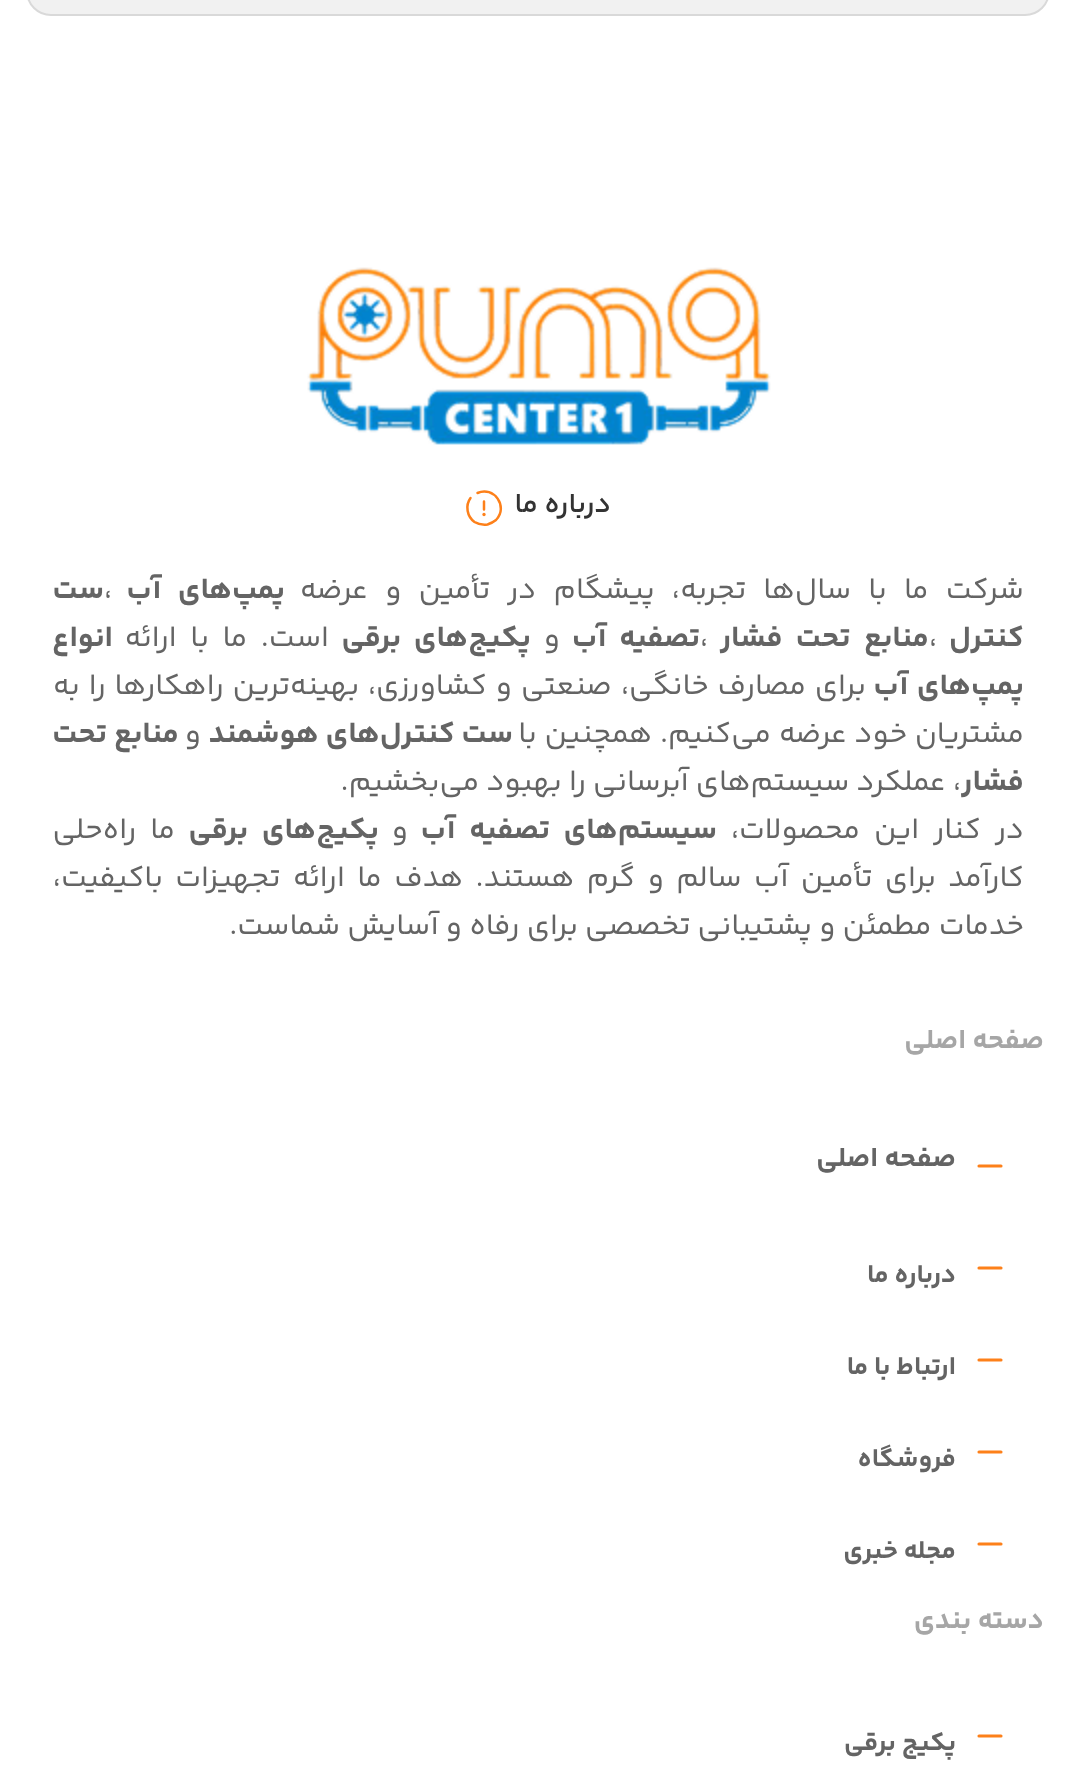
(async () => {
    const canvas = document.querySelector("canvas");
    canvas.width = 1076;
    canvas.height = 1777;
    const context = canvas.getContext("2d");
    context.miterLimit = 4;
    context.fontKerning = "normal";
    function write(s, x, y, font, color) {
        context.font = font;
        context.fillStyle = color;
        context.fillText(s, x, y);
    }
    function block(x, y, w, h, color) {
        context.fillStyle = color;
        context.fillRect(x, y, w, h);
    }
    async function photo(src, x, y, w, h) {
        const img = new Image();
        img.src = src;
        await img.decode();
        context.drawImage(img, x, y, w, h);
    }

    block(0, 0, 1076, 1777, "rgb(255, 255, 255)");
    context.fillStyle = "rgb(241, 241, 241)";
    context.beginPath();
    context.roundRect(27, -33, 1022, 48, 31);
    context.fill();
    context.strokeStyle = "rgb(217, 217, 217)";
    context.lineWidth = 2;
    context.stroke();
    await photo("media/1.png", 307, 267, 464, 178);
    context.direction = "rtl";
    write("درباره ما", 611, 512, "600 28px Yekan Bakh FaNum", "rgb(51, 51, 51)");
    context.beginPath();
    context.moveTo(484, 501.5);
    context.lineTo(484, 509.5);
    context.moveTo(470.5, 498);
    context.bezierCurveTo(465, 505.5, 467, 516.5, 474.5, 522);
    context.bezierCurveTo(478.5, 524.5, 483, 525, 487.5, 524.5);
    context.bezierCurveTo(490.5, 523.5, 493.5, 522, 496, 520);
    context.bezierCurveTo(509, 506.5, 493.5, 485.5, 477.5, 493);
    context.strokeStyle = "rgb(253, 128, 26)";
    context.lineWidth = 2.5;
    context.lineCap = "round";
    context.lineJoin = "round";
    context.stroke();
    context.beginPath();
    context.moveTo(484, 514.5);
    context.lineTo(484, 514.5);
    context.lineWidth = 3.3;
    context.stroke();
    context.wordSpacing = "10px";
    write("شرکت ما با سال‌ها تجربه، پیشگام در تأمین و عرضه", 1024, 598, "30px Yekan Bakh FaNum", "rgb(100, 100, 100)");
    write("پمپ‌های آب", 285, 598, "bold 30px Yekan Bakh FaNum", "rgb(100, 100, 100)");
    context.wordSpacing = "0px";
    context.direction = "ltr";
    write("،", 104, 598, "30px Yekan Bakh FaNum", "rgb(100, 100, 100)");
    context.direction = "rtl";
    write("ست", 104, 598, "bold 30px Yekan Bakh FaNum", "rgb(100, 100, 100)");
    write("کنترل", 1024, 646, "bold 30px Yekan Bakh FaNum", "rgb(100, 100, 100)");
    context.direction = "ltr";
    write("،", 929, 646, "30px Yekan Bakh FaNum", "rgb(100, 100, 100)");
    context.wordSpacing = "6.5px";
    context.direction = "rtl";
    write("منابع تحت فشار", 929, 646, "bold 30px Yekan Bakh FaNum", "rgb(100, 100, 100)");
    context.wordSpacing = "0px";
    context.direction = "ltr";
    write("،", 700, 646, "30px Yekan Bakh FaNum", "rgb(100, 100, 100)");
    context.wordSpacing = "6px";
    context.direction = "rtl";
    write("تصفیه آب", 700, 646, "bold 30px Yekan Bakh FaNum", "rgb(100, 100, 100)");
    context.wordSpacing = "0px";
    write("و", 560, 646, "30px Yekan Bakh FaNum", "rgb(100, 100, 100)");
    context.wordSpacing = "6px";
    write("پکیج‌های برقی", 531, 646, "bold 30px Yekan Bakh FaNum", "rgb(100, 100, 100)");
    context.wordSpacing = "6.5px";
    write("است. ما با ارائه", 329, 646, "30px Yekan Bakh FaNum", "rgb(100, 100, 100)");
    context.wordSpacing = "0px";
    write("انواع", 113, 646, "bold 30px Yekan Bakh FaNum", "rgb(100, 100, 100)");
    context.wordSpacing = "2px";
    write("پمپ‌های آب", 1024, 694, "bold 30px Yekan Bakh FaNum", "rgb(100, 100, 100)");
    context.wordSpacing = "1.75px";
    write("برای مصارف خانگی، صنعتی و کشاورزی، بهینه‌ترین راهکارها را به", 866, 694, "30px Yekan Bakh FaNum", "rgb(100, 100, 100)");
    context.wordSpacing = "0.5px";
    write("مشتریان خود عرضه می‌کنیم. همچنین با", 1024, 742, "30px Yekan Bakh FaNum", "rgb(100, 100, 100)");
    context.wordSpacing = "0px";
    write("ست کنترل‌های هوشمند", 513, 742, "bold 30px Yekan Bakh FaNum", "rgb(100, 100, 100)");
    write("و", 201, 742, "30px Yekan Bakh FaNum", "rgb(100, 100, 100)");
    write("منابع تحت", 179, 742, "bold 30px Yekan Bakh FaNum", "rgb(100, 100, 100)");
    write("فشار", 1024, 790, "bold 30px Yekan Bakh FaNum", "rgb(100, 100, 100)");
    write("، عملکرد سیستم‌های آبرسانی را بهبود می‌بخشیم.", 961, 790, "30px Yekan Bakh FaNum", "rgb(100, 100, 100)");
    context.wordSpacing = "7px";
    write("در کنار این محصولات،", 1024, 838, "30px Yekan Bakh FaNum", "rgb(100, 100, 100)");
    write("سیستم‌های تصفیه آب", 717, 838, "bold 30px Yekan Bakh FaNum", "rgb(100, 100, 100)");
    context.wordSpacing = "0px";
    write("و", 408, 838, "30px Yekan Bakh FaNum", "rgb(100, 100, 100)");
    context.wordSpacing = "7px";
    write("پکیج‌های برقی", 379, 838, "bold 30px Yekan Bakh FaNum", "rgb(100, 100, 100)");
    write("ما راه‌حلی", 175, 838, "30px Yekan Bakh FaNum", "rgb(100, 100, 100)");
    context.wordSpacing = "5.25px";
    write("کارآمد برای تأمین آب سالم و گرم هستند. هدف ما ارائه تجهیزات باکیفیت،", 1024, 886, "30px Yekan Bakh FaNum", "rgb(100, 100, 100)");
    context.wordSpacing = "0px";
    write("خدمات مطمئن و پشتیبانی تخصصی برای رفاه و آسایش شماست.", 1024, 934, "30px Yekan Bakh FaNum", "rgb(100, 100, 100)");
    write("صفحه اصلی", 1044, 1048, "bold 28px Yekan Bakh FaNum", "rgb(166, 166, 166)");
    context.beginPath();
    context.moveTo(979, 1166);
    context.lineTo(1001, 1166);
    context.lineWidth = 3.1;
    context.lineJoin = "miter";
    context.stroke();
    write("صفحه اصلی", 956, 1166, "bold 28px Yekan Bakh FaNum", "rgb(100, 100, 100)");
    context.beginPath();
    context.moveTo(979, 1268);
    context.lineTo(1001, 1268);
    context.stroke();
    write("درباره ما", 956, 1282, "bold 26px Yekan Bakh FaNum", "rgb(100, 100, 100)");
    context.beginPath();
    context.moveTo(979, 1360);
    context.lineTo(1001, 1360);
    context.stroke();
    write("ارتباط با ما", 956, 1374, "bold 26px Yekan Bakh FaNum", "rgb(100, 100, 100)");
    context.beginPath();
    context.moveTo(979, 1452);
    context.lineTo(1001, 1452);
    context.stroke();
    write("فروشگاه", 956, 1466, "bold 26px Yekan Bakh FaNum", "rgb(100, 100, 100)");
    context.beginPath();
    context.moveTo(979, 1544);
    context.lineTo(1001, 1544);
    context.stroke();
    write("مجله خبری", 956, 1558, "bold 26px Yekan Bakh FaNum", "rgb(100, 100, 100)");
    write("دسته بندی", 1044, 1628, "bold 28px Yekan Bakh FaNum", "rgb(166, 166, 166)");
    context.beginPath();
    context.moveTo(979, 1736);
    context.lineTo(1001, 1736);
    context.stroke();
    write("پکیج برقی", 956, 1750, "bold 26px Yekan Bakh FaNum", "rgb(100, 100, 100)");
})();
